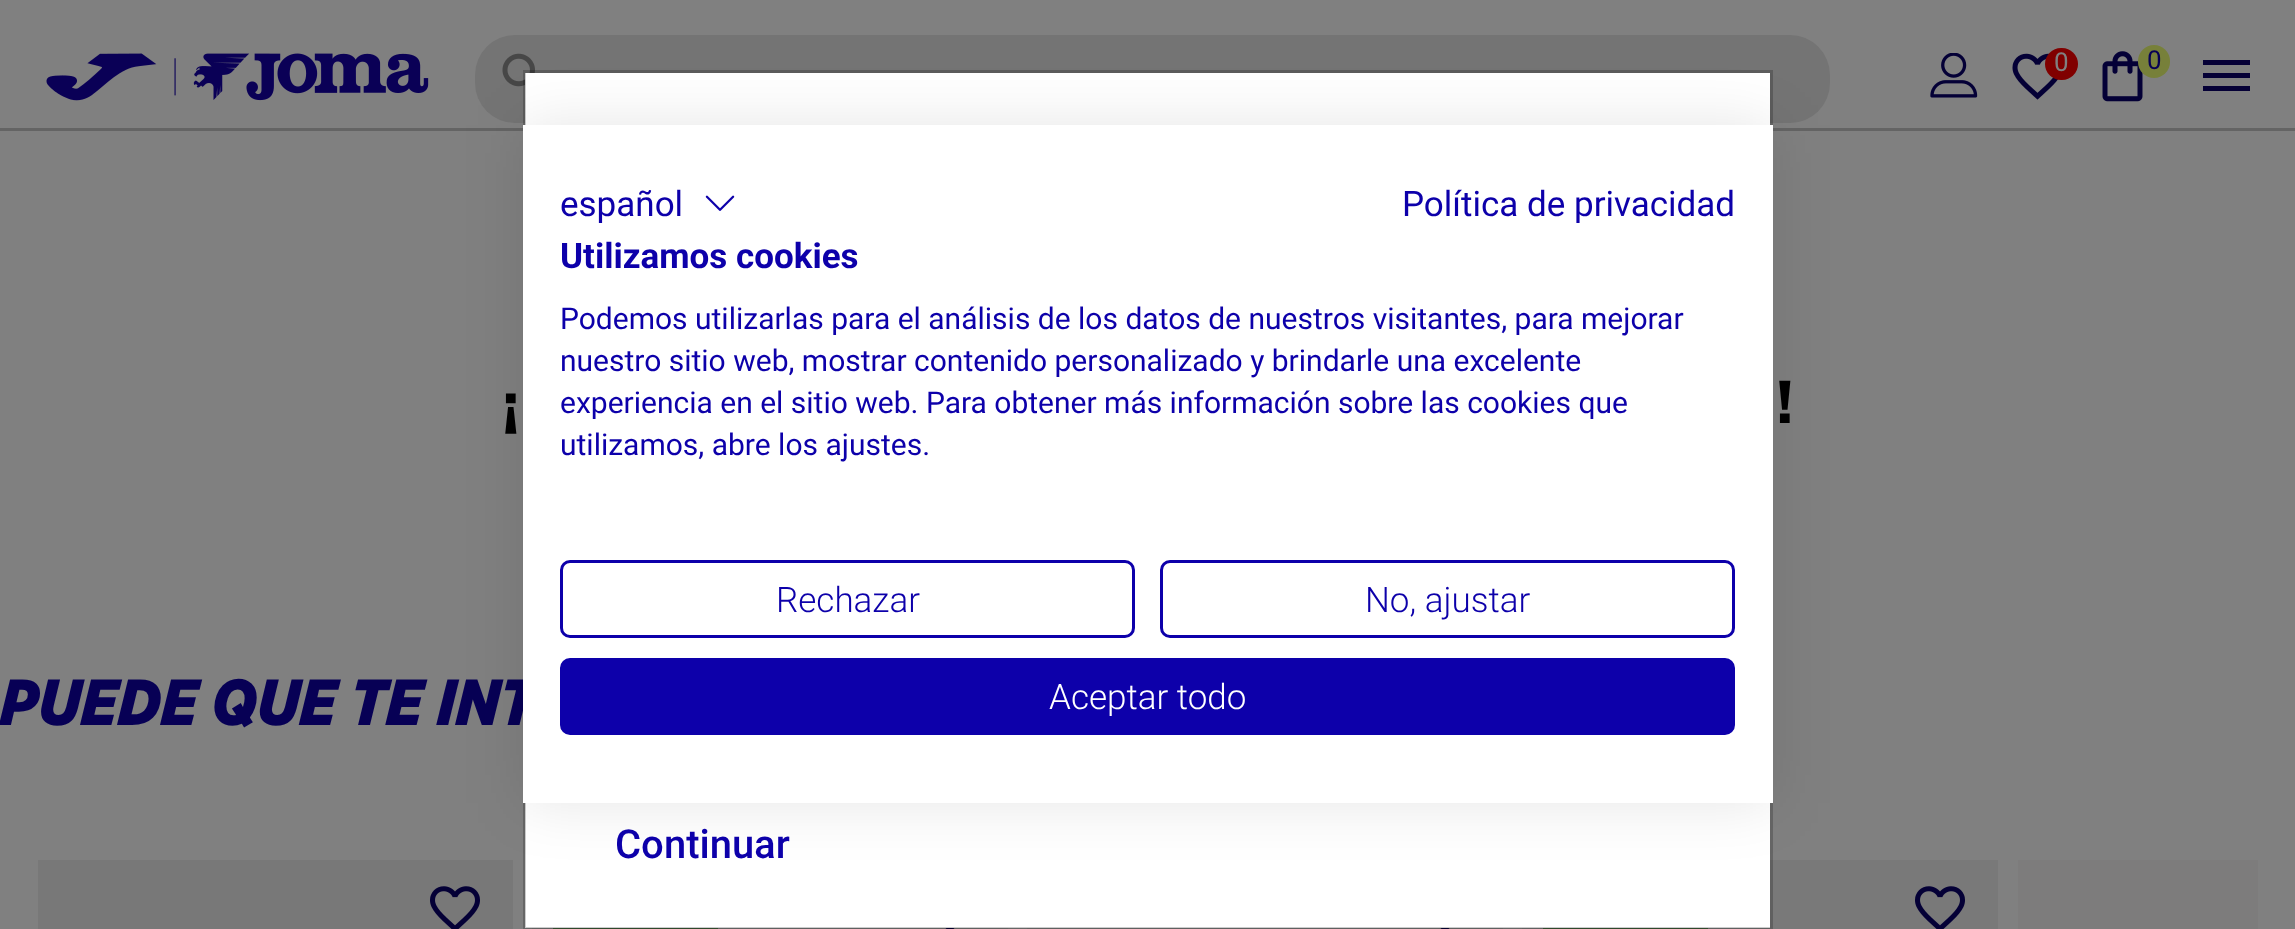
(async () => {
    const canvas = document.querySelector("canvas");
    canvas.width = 2295;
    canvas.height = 929;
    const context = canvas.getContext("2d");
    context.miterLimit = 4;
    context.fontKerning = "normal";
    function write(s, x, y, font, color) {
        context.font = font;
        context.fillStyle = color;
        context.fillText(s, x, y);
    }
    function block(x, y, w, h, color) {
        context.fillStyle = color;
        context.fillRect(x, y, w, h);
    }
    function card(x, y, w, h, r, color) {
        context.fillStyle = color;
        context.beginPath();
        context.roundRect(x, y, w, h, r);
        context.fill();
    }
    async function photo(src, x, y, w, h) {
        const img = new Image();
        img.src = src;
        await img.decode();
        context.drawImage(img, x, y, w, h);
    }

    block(0, 0, 2295, 929, "rgb(128, 128, 128)");
    block(0, 128, 2295, 3, "rgb(100, 100, 100)");
    await photo("media/1.png", 46, 53, 383, 48);
    card(475, 35, 1355, 88, 40, "rgb(116, 116, 116)");
    await photo("media/2.png", 502, 53, 33, 34);
    await photo("media/3.png", 1930, 53, 48, 45);
    await photo("media/4.png", 2012, 53, 46, 47);
    card(2045, 48, 33, 32, 16, "rgb(128, 0, 0)");
    write("0", 2054, 71, "26px Roboto", "rgb(128, 128, 128)");
    await photo("media/5.png", 2102, 51, 41, 51);
    card(2138, 45, 32, 33, 16, "rgb(119, 128, 58)");
    write("0", 2147, 69, "26px Roboto", "rgb(7, 0, 85)");
    context.fillStyle = "rgb(5, 0, 54)";
    context.beginPath();
    context.moveTo(2203, 91);
    context.lineTo(2250, 91);
    context.lineTo(2250, 86);
    context.lineTo(2203, 86);
    context.closePath();
    context.moveTo(2203, 78);
    context.lineTo(2250, 78);
    context.lineTo(2250, 73);
    context.lineTo(2203, 73);
    context.closePath();
    context.moveTo(2203, 60);
    context.lineTo(2203, 65);
    context.lineTo(2250, 65);
    context.lineTo(2250, 60);
    context.closePath();
    context.fill();
    write("¡", 503, 423, "800 60px Nunito Sans", "rgb(0, 0, 0)");
    write("!", 1777, 423, "800 60px Nunito Sans", "rgb(0, 0, 0)");
    write("PUEDE QUE TE INT", 0, 725, "italic 900 65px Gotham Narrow", "rgb(7, 0, 85)");
    block(38, 860, 475, 69, "rgb(120, 120, 120)");
    await photo("media/6.png", 430, 886, 50, 43);
    block(532, 928, 476, 1, "rgb(121, 121, 121)");
    await photo("media/7.png", 945, 928, 10, 1);
    block(553, 928, 165, 1, "rgb(59, 92, 55)");
    block(1027, 928, 476, 1, "rgb(120, 120, 120)");
    await photo("media/8.png", 1440, 928, 10, 1);
    block(1522, 860, 476, 69, "rgb(121, 121, 121)");
    await photo("media/9.png", 1915, 886, 50, 43);
    block(1543, 928, 165, 1, "rgb(59, 92, 55)");
    block(2018, 860, 240, 69, "rgb(125, 124, 124)");
    block(525, 73, 1245, 855, "rgb(255, 255, 255)");
    context.strokeStyle = "rgba(0, 0, 0, 0.2)";
    context.lineWidth = 3;
    context.strokeRect(524.5, 71.5, 1247, 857);
    context.fillStyle = "rgba(0, 0, 0, 0.1)";
    context.filter = "blur(30px)";
    context.beginPath();
    context.rect(523, 125, 1250, 678);
    context.fill();
    context.filter = "none";
    block(523, 125, 1250, 678, "rgb(255, 255, 255)");
    write("español", 560, 216, "35px 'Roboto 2'", "rgb(13, 0, 170)");
    await photo("media/10.png", 705, 195, 30, 16);
    write("Política de privacidad", 1402, 216, "35px 'Roboto 2'", "rgb(13, 0, 170)");
    write("Utilizamos cookies", 560, 268, "bold 35px Roboto", "rgb(13, 0, 170)");
    write("Podemos utilizarlas para el análisis de los datos de nuestros visitantes, para mejorar", 560, 329, "30px 'Roboto 2'", "rgb(13, 0, 170)");
    write("nuestro sitio web, mostrar contenido personalizado y brindarle una excelente", 560, 371, "30px 'Roboto 2'", "rgb(13, 0, 170)");
    write("experiencia en el sitio web. Para obtener más información sobre las cookies que", 560, 413, "30px 'Roboto 2'", "rgb(13, 0, 170)");
    write("utilizamos, abre los ajustes.", 560, 455, "30px 'Roboto 2'", "rgb(13, 0, 170)");
    context.beginPath();
    context.roundRect(561.5, 561.5, 572, 75, 8.5);
    context.strokeStyle = "rgb(13, 0, 170)";
    context.stroke();
    write("Rechazar", 776, 612, "300 35px Roboto", "rgb(13, 0, 170)");
    context.beginPath();
    context.roundRect(1161.5, 561.5, 572, 75, 8.5);
    context.stroke();
    write("No, ajustar", 1365, 612, "300 35px Roboto", "rgb(13, 0, 170)");
    context.beginPath();
    context.roundRect(561.5, 659.5, 1172, 74, 8.5);
    context.fill();
    context.stroke();
    write("Aceptar todo", 1049, 709, "300 35px Roboto", "rgb(255, 255, 255)");
    write("Continuar", 615, 858, "500 40px Roboto", "rgb(13, 0, 170)");
})();
